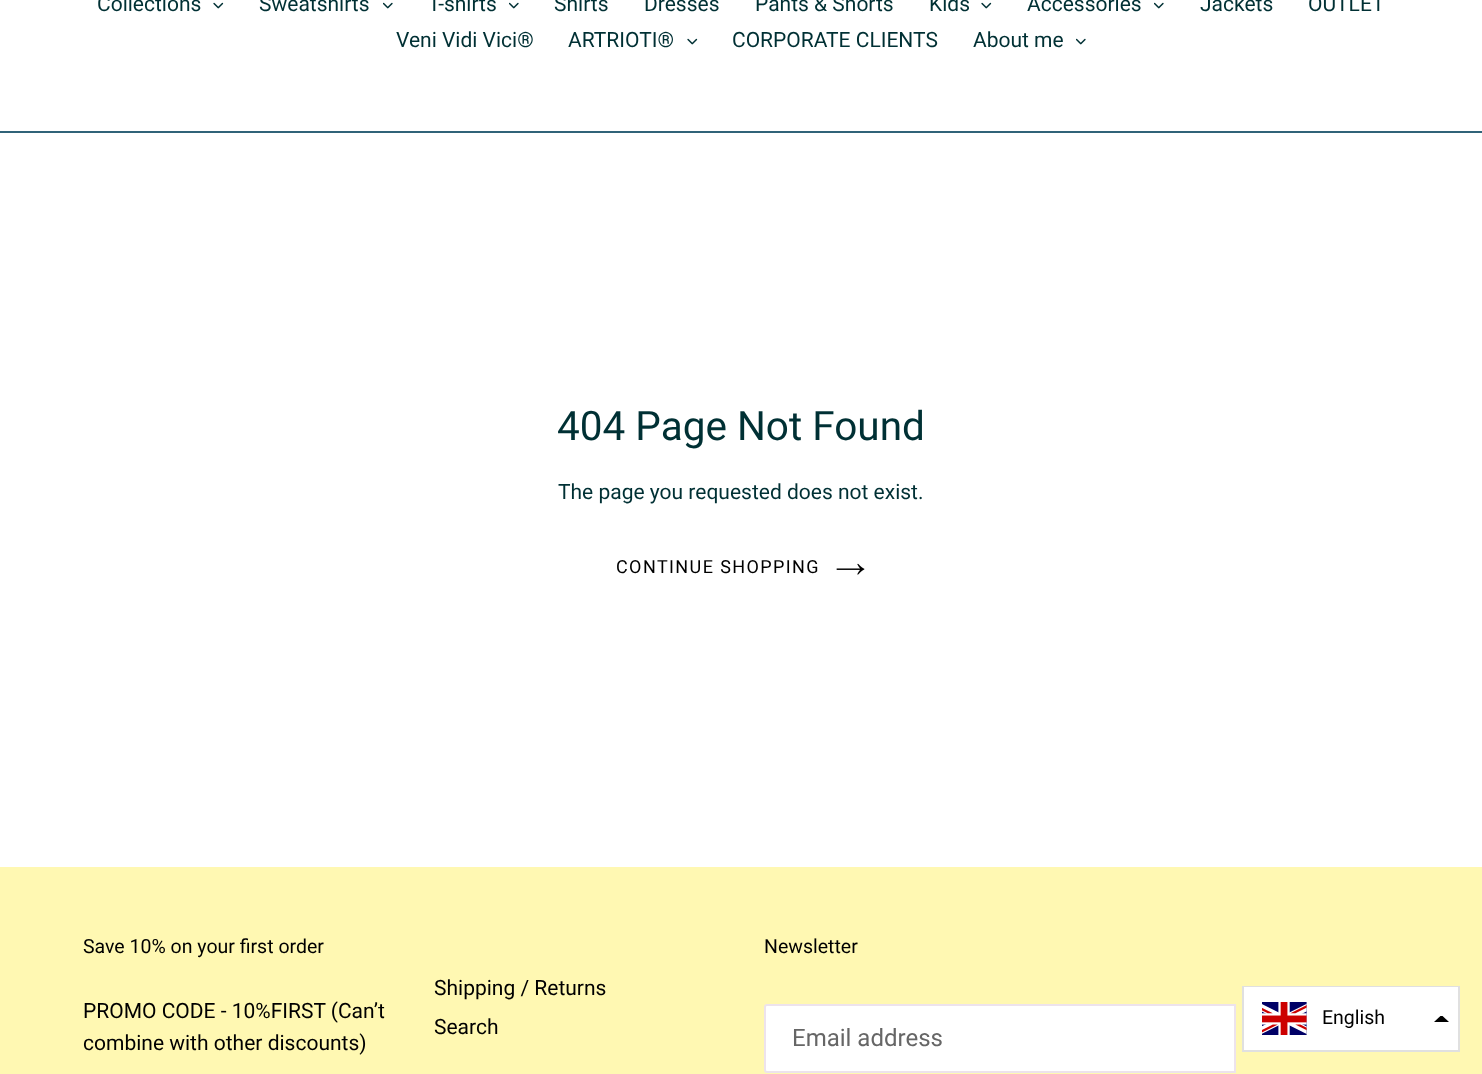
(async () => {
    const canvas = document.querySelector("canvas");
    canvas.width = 1482;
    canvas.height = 1074;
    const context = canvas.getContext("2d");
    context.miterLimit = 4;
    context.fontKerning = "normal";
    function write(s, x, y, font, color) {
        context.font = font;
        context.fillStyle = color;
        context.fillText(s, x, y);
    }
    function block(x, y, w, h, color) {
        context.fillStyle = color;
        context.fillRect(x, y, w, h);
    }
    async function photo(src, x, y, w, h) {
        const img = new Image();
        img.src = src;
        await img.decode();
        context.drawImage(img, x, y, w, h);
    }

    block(0, 0, 1482, 1074, "rgb(255, 255, 255)");
    block(0, 131, 1482, 2, "rgb(48, 99, 120)");
    write("Collections", 97, 11, "21px Roboto", "rgb(0, 48, 52)");
    await photo("media/1.png", 213, 2, 11, 7);
    write("Sweatshirts", 259, 11, "21px Roboto", "rgb(0, 48, 52)");
    await photo("media/2.png", 383, 2, 10, 7);
    write("T-shirts", 428, 11, "21px Roboto", "rgb(0, 48, 52)");
    await photo("media/2.png", 509, 2, 10, 7);
    write("Shirts", 554, 11, "21px Roboto", "rgb(0, 48, 52)");
    write("Dresses", 644, 11, "21px Roboto", "rgb(0, 48, 52)");
    write("Pants & Shorts", 755, 11, "21px Roboto", "rgb(0, 48, 52)");
    write("Kids", 929, 11, "21px Roboto", "rgb(0, 48, 52)");
    await photo("media/1.png", 981, 2, 11, 7);
    write("Accessories", 1027, 11, "21px Roboto", "rgb(0, 48, 52)");
    await photo("media/2.png", 1154, 2, 10, 7);
    write("Jackets", 1200, 11, "21px Roboto", "rgb(0, 48, 52)");
    write("OUTLET", 1308, 11, "21px Roboto", "rgb(0, 48, 52)");
    write("Veni Vidi Vici®", 396, 47, "21px Roboto", "rgb(0, 48, 52)");
    write("ARTRIOTI®", 568, 47, "21px Roboto", "rgb(0, 48, 52)");
    await photo("media/1.png", 687, 38, 11, 7);
    write("CORPORATE CLIENTS", 732, 47, "21px Roboto", "rgb(0, 48, 52)");
    write("About me", 973, 47, "21px Roboto", "rgb(0, 48, 52)");
    await photo("media/2.png", 1076, 38, 10, 7);
    write("404 Page Not Found", 557, 440, "40.5px Roboto", "rgb(0, 48, 52)");
    write("The page you requested does not exist.", 558, 499, "21px Roboto", "rgb(0, 48, 52)");
    context.letterSpacing = "1.4px";
    write("CONTINUE SHOPPING", 616, 573, "18px Roboto", "rgb(0, 0, 0)");
    await photo("media/3.png", 836, 563, 29, 12);
    block(0, 867, 1482, 207, "rgb(255, 248, 178)");
    context.letterSpacing = "0px";
    write("Save 10% on your first order", 83, 953, "19.5px Roboto", "rgb(0, 0, 0)");
    write("PROMO CODE - 10%FIRST (Can’t", 83, 1018, "21px Roboto", "rgb(0, 0, 0)");
    write("combine with other discounts)", 83, 1050, "21px Roboto", "rgb(0, 0, 0)");
    write("Shipping / Returns", 434, 995, "21px Roboto", "rgb(0, 0, 0)");
    write("Search", 434, 1034, "21px Roboto", "rgb(0, 0, 0)");
    write("Newsletter", 764, 953, "19.5px Roboto", "rgb(0, 0, 0)");
    context.fillStyle = "rgb(255, 255, 255)";
    context.beginPath();
    context.roundRect(765, 1005, 470, 67, [2, 0, 0, 2]);
    context.fill();
    context.strokeStyle = "rgb(237, 227, 236)";
    context.lineWidth = 2;
    context.stroke();
    write("Email address", 792, 1046, "24px Roboto", "rgb(102, 102, 102)");
    context.strokeStyle = "rgb(224, 224, 224)";
    context.strokeRect(1243, 987, 216, 64);
    block(1244, 987, 214, 63, "rgb(255, 255, 255)");
    await photo("media/4.png", 1262, 1002, 45, 33);
    write("English", 1322, 1024, "19.5px Roboto", "rgb(0, 0, 0)");
    context.save();
    context.beginPath();
    context.rect(1434, 1016, 15, 7);
    context.clip();
    context.beginPath();
    context.moveTo(1434, 1022);
    context.lineTo(1441.5, 1015);
    context.lineTo(1449, 1022);
    context.closePath();
    context.fill("evenodd");
    context.restore();
})();
